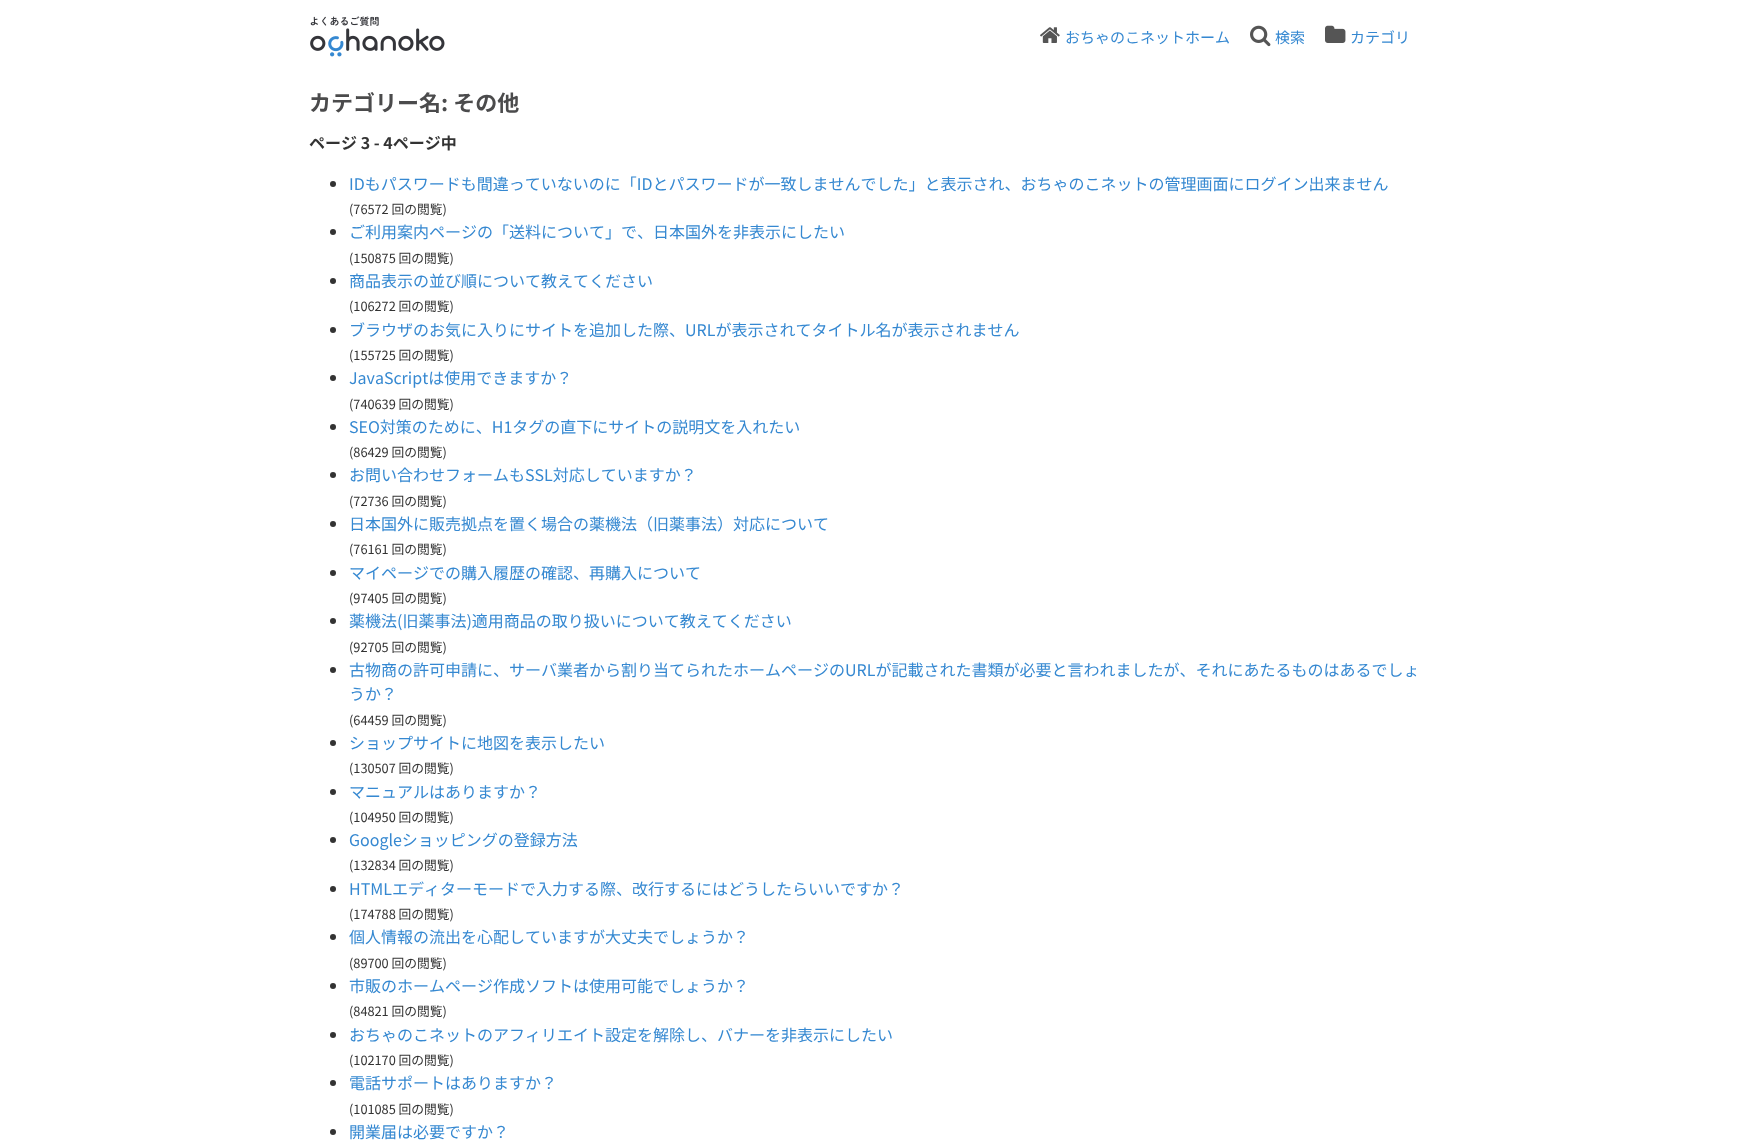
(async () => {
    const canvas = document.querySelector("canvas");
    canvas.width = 1739;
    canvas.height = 1140;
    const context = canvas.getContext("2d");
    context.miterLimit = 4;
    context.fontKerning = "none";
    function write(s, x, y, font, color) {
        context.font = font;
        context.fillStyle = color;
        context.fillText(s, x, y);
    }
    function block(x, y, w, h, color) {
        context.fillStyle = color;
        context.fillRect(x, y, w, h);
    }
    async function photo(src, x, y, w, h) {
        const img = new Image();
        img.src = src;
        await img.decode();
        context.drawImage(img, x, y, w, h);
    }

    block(0, 0, 1739, 1140, "rgb(255, 255, 255)");
    await photo("media/1.png", 310, 16, 135, 41);
    await photo("media/2.png", 1040, 27, 20, 16);
    write("おちゃのこネットホーム", 1065, 43, "15px Noto Sans JP", "rgb(53, 136, 209)");
    await photo("media/3.png", 1250, 25, 21, 22);
    write("検索", 1275, 43, "15px Noto Sans JP", "rgb(53, 136, 209)");
    await photo("media/4.png", 1325, 25, 21, 18);
    write("カテゴリ", 1350, 43, "15px Noto Sans JP", "rgb(53, 136, 209)");
    write("カテゴリー名: その他", 309, 111, "bold 22px Noto Sans JP", "rgb(75, 75, 76)");
    write("ページ 3 - 4ページ中", 309, 149, "bold 16px Noto Sans JP", "rgb(51, 51, 51)");
    context.beginPath();
    context.arc(333, 184, 3, 0, Math.PI * 2);
    context.fill();
    write("IDもパスワードも間違っていないのに「IDとパスワードが一致しませんでした」と表示され、おちゃのこネットの管理画面にログイン出来ません", 349, 190, "16px Noto Sans JP", "rgb(53, 136, 209)");
    write("(76572 回の閲覧)", 349, 214, "12.75px Noto Sans JP", "rgb(51, 51, 51)");
    context.beginPath();
    context.arc(333, 232, 3, 0, Math.PI * 2);
    context.fill();
    write("ご利用案内ページの「送料について」で、日本国外を非表示にしたい", 349, 238, "16px Noto Sans JP", "rgb(53, 136, 209)");
    write("(150875 回の閲覧)", 349, 263, "12.75px Noto Sans JP", "rgb(51, 51, 51)");
    context.beginPath();
    context.arc(333, 281, 3, 0, Math.PI * 2);
    context.fill();
    write("商品表示の並び順について教えてください", 349, 287, "16px Noto Sans JP", "rgb(53, 136, 209)");
    write("(106272 回の閲覧)", 349, 311, "12.75px Noto Sans JP", "rgb(51, 51, 51)");
    context.beginPath();
    context.arc(333, 330, 3, 0, Math.PI * 2);
    context.fill();
    write("ブラウザのお気に入りにサイトを追加した際、URLが表示されてタイトル名が表示されません", 349, 336, "16px Noto Sans JP", "rgb(53, 136, 209)");
    write("(155725 回の閲覧)", 349, 360, "12.75px Noto Sans JP", "rgb(51, 51, 51)");
    context.beginPath();
    context.arc(333, 378, 3, 0, Math.PI * 2);
    context.fill();
    write("JavaScriptは使用できますか？", 349, 384, "16px Noto Sans JP", "rgb(53, 136, 209)");
    write("(740639 回の閲覧)", 349, 409, "12.75px Noto Sans JP", "rgb(51, 51, 51)");
    context.beginPath();
    context.arc(333, 427, 3, 0, Math.PI * 2);
    context.fill();
    write("SEO対策のために、H1タグの直下にサイトの説明文を入れたい", 349, 433, "16px Noto Sans JP", "rgb(53, 136, 209)");
    write("(86429 回の閲覧)", 349, 457, "12.75px Noto Sans JP", "rgb(51, 51, 51)");
    context.beginPath();
    context.arc(333, 475, 3, 0, Math.PI * 2);
    context.fill();
    write("お問い合わせフォームもSSL対応していますか？", 349, 481, "16px Noto Sans JP", "rgb(53, 136, 209)");
    write("(72736 回の閲覧)", 349, 506, "12.75px Noto Sans JP", "rgb(51, 51, 51)");
    context.beginPath();
    context.arc(333, 524, 3, 0, Math.PI * 2);
    context.fill();
    write("日本国外に販売拠点を置く場合の薬機法（旧薬事法）対応について", 349, 530, "16px Noto Sans JP", "rgb(53, 136, 209)");
    write("(76161 回の閲覧)", 349, 554, "12.75px Noto Sans JP", "rgb(51, 51, 51)");
    context.beginPath();
    context.arc(333, 573, 3, 0, Math.PI * 2);
    context.fill();
    write("マイページでの購入履歴の確認、再購入について", 349, 579, "16px Noto Sans JP", "rgb(53, 136, 209)");
    write("(97405 回の閲覧)", 349, 603, "12.75px Noto Sans JP", "rgb(51, 51, 51)");
    context.beginPath();
    context.arc(333, 621, 3, 0, Math.PI * 2);
    context.fill();
    write("薬機法(旧薬事法)適用商品の取り扱いについて教えてください", 349, 627, "16px Noto Sans JP", "rgb(53, 136, 209)");
    write("(92705 回の閲覧)", 349, 652, "12.75px Noto Sans JP", "rgb(51, 51, 51)");
    context.beginPath();
    context.arc(333, 670, 3, 0, Math.PI * 2);
    context.fill();
    write("古物商の許可申請に、サーバ業者から割り当てられたホームページのURLが記載された書類が必要と言われましたが、それにあたるものはあるでしょ", 349, 676, "16px Noto Sans JP", "rgb(53, 136, 209)");
    write("うか？", 349, 700, "16px Noto Sans JP", "rgb(53, 136, 209)");
    write("(64459 回の閲覧)", 349, 725, "12.75px Noto Sans JP", "rgb(51, 51, 51)");
    context.beginPath();
    context.arc(333, 743, 3, 0, Math.PI * 2);
    context.fill();
    write("ショップサイトに地図を表示したい", 349, 749, "16px Noto Sans JP", "rgb(53, 136, 209)");
    write("(130507 回の閲覧)", 349, 773, "12.75px Noto Sans JP", "rgb(51, 51, 51)");
    context.beginPath();
    context.arc(333, 792, 3, 0, Math.PI * 2);
    context.fill();
    write("マニュアルはありますか？", 349, 798, "16px Noto Sans JP", "rgb(53, 136, 209)");
    write("(104950 回の閲覧)", 349, 822, "12.75px Noto Sans JP", "rgb(51, 51, 51)");
    context.beginPath();
    context.arc(333, 840, 3, 0, Math.PI * 2);
    context.fill();
    write("Googleショッピングの登録方法", 349, 846, "16px Noto Sans JP", "rgb(53, 136, 209)");
    write("(132834 回の閲覧)", 349, 870, "12.75px Noto Sans JP", "rgb(51, 51, 51)");
    context.beginPath();
    context.arc(333, 889, 3, 0, Math.PI * 2);
    context.fill();
    write("HTMLエディターモードで入力する際、改行するにはどうしたらいいですか？", 349, 895, "16px Noto Sans JP", "rgb(53, 136, 209)");
    write("(174788 回の閲覧)", 349, 919, "12.75px Noto Sans JP", "rgb(51, 51, 51)");
    context.beginPath();
    context.arc(333, 937, 3, 0, Math.PI * 2);
    context.fill();
    write("個人情報の流出を心配していますが大丈夫でしょうか？", 349, 943, "16px Noto Sans JP", "rgb(53, 136, 209)");
    write("(89700 回の閲覧)", 349, 968, "12.75px Noto Sans JP", "rgb(51, 51, 51)");
    context.beginPath();
    context.arc(333, 986, 3, 0, Math.PI * 2);
    context.fill();
    write("市販のホームページ作成ソフトは使用可能でしょうか？", 349, 992, "16px Noto Sans JP", "rgb(53, 136, 209)");
    write("(84821 回の閲覧)", 349, 1016, "12.75px Noto Sans JP", "rgb(51, 51, 51)");
    context.beginPath();
    context.arc(333, 1035, 3, 0, Math.PI * 2);
    context.fill();
    write("おちゃのこネットのアフィリエイト設定を解除し、バナーを非表示にしたい", 349, 1041, "16px Noto Sans JP", "rgb(53, 136, 209)");
    write("(102170 回の閲覧)", 349, 1065, "12.75px Noto Sans JP", "rgb(51, 51, 51)");
    context.beginPath();
    context.arc(333, 1083, 3, 0, Math.PI * 2);
    context.fill();
    write("電話サポートはありますか？", 349, 1089, "16px Noto Sans JP", "rgb(53, 136, 209)");
    write("(101085 回の閲覧)", 349, 1114, "12.75px Noto Sans JP", "rgb(51, 51, 51)");
    context.beginPath();
    context.arc(333, 1132, 3, 0, Math.PI * 2);
    context.fill();
    write("開業届は必要ですか？", 349, 1138, "16px Noto Sans JP", "rgb(53, 136, 209)");
})();
